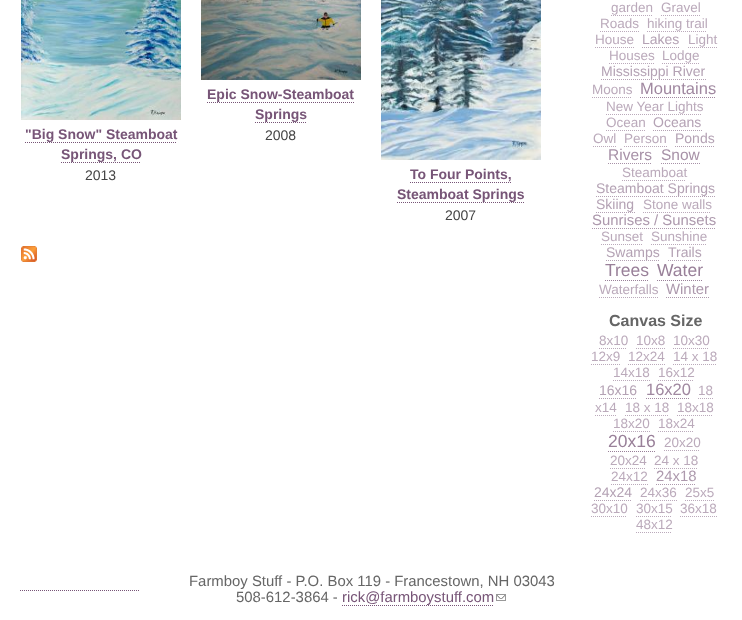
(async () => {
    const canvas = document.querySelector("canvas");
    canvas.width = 742;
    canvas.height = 620;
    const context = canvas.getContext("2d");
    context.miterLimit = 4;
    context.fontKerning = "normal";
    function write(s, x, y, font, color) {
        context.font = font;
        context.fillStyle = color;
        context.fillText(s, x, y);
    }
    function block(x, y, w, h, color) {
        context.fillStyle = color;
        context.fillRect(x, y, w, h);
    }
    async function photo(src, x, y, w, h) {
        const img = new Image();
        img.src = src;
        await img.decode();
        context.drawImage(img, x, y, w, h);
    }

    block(0, 0, 742, 620, "rgb(255, 255, 255)");
    await photo("media/1.png", 201, 0, 160, 80);
    write("Epic Snow-Steamboat", 207, 99, "bold 14px Liberation Sans", "rgb(119, 85, 119)");
    context.beginPath();
    context.moveTo(207, 102.5);
    context.lineTo(355, 102.5);
    context.strokeStyle = "rgb(119, 85, 119)";
    context.setLineDash([1, 1]);
    context.stroke();
    write("Springs", 255, 119, "bold 14px Liberation Sans", "rgb(119, 85, 119)");
    context.beginPath();
    context.moveTo(255, 122.5);
    context.lineTo(307, 122.5);
    context.stroke();
    write("2008", 265, 140, "14px Liberation Sans", "rgb(68, 68, 68)");
    await photo("media/2.png", 21, 0, 160, 120);
    write("\"Big Snow\" Steamboat", 25, 139, "bold 14px Liberation Sans", "rgb(119, 85, 119)");
    context.beginPath();
    context.moveTo(25, 142.5);
    context.lineTo(177, 142.5);
    context.stroke();
    write("Springs, CO", 61, 159, "bold 14px Liberation Sans", "rgb(119, 85, 119)");
    context.beginPath();
    context.moveTo(61, 162.5);
    context.lineTo(141, 162.5);
    context.stroke();
    write("2013", 85, 180, "14px Liberation Sans", "rgb(68, 68, 68)");
    await photo("media/3.png", 381, 0, 160, 160);
    write("To Four Points,", 410, 179, "bold 14px Liberation Sans", "rgb(119, 85, 119)");
    context.beginPath();
    context.moveTo(410, 182.5);
    context.lineTo(512, 182.5);
    context.stroke();
    write("Steamboat Springs", 397, 199, "bold 14px Liberation Sans", "rgb(119, 85, 119)");
    context.beginPath();
    context.moveTo(397, 202.5);
    context.lineTo(525, 202.5);
    context.stroke();
    write("2007", 445, 220, "14px Liberation Sans", "rgb(68, 68, 68)");
    await photo("media/4.png", 21, 246, 16, 16);
    write("garden", 611, 12, "13.5px Liberation Sans", "rgb(187, 170, 187)");
    context.beginPath();
    context.moveTo(611, 15.5);
    context.lineTo(653, 15.5);
    context.strokeStyle = "rgb(187, 170, 187)";
    context.stroke();
    write("Gravel", 661, 12, "13.5px Liberation Sans", "rgb(187, 170, 187)");
    context.beginPath();
    context.moveTo(661, 15.5);
    context.lineTo(701, 15.5);
    context.stroke();
    write("Roads", 600, 28, "13.5px Liberation Sans", "rgb(187, 170, 187)");
    context.beginPath();
    context.moveTo(600, 31.5);
    context.lineTo(639, 31.5);
    context.stroke();
    write("hiking trail", 647, 28, "13.5px Liberation Sans", "rgb(187, 170, 187)");
    context.beginPath();
    context.moveTo(647, 31.5);
    context.lineTo(707, 31.5);
    context.stroke();
    write("House", 595, 44, "13.5px Liberation Sans", "rgb(187, 170, 187)");
    context.beginPath();
    context.moveTo(595, 47.5);
    context.lineTo(634, 47.5);
    context.stroke();
    write("Lakes", 642, 44, "14px Liberation Sans", "rgb(180, 162, 180)");
    context.beginPath();
    context.moveTo(642, 47.5);
    context.lineTo(680, 47.5);
    context.strokeStyle = "rgb(180, 162, 180)";
    context.stroke();
    write("Light", 688, 44, "13.5px Liberation Sans", "rgb(187, 170, 187)");
    context.beginPath();
    context.moveTo(688, 47.5);
    context.lineTo(717, 47.5);
    context.strokeStyle = "rgb(187, 170, 187)";
    context.stroke();
    write("Houses", 609, 60, "13.5px Liberation Sans", "rgb(187, 170, 187)");
    context.beginPath();
    context.moveTo(609, 63.5);
    context.lineTo(654, 63.5);
    context.stroke();
    write("Lodge", 662, 60, "13.5px Liberation Sans", "rgb(187, 170, 187)");
    context.beginPath();
    context.moveTo(662, 63.5);
    context.lineTo(699, 63.5);
    context.stroke();
    write("Mississippi River", 601, 76, "14px Liberation Sans", "rgb(180, 162, 180)");
    context.beginPath();
    context.moveTo(601, 79.5);
    context.lineTo(706, 79.5);
    context.strokeStyle = "rgb(180, 162, 180)";
    context.stroke();
    write("Moons", 592, 94, "13.5px Liberation Sans", "rgb(187, 170, 187)");
    context.beginPath();
    context.moveTo(592, 97.5);
    context.lineTo(632, 97.5);
    context.strokeStyle = "rgb(187, 170, 187)";
    context.stroke();
    write("Mountains", 640, 94, "16.5px Liberation Sans", "rgb(160, 136, 160)");
    context.beginPath();
    context.moveTo(640, 97.5);
    context.lineTo(716, 97.5);
    context.strokeStyle = "rgb(160, 136, 160)";
    context.stroke();
    write("New Year Lights", 606, 111, "13.5px Liberation Sans", "rgb(187, 170, 187)");
    context.beginPath();
    context.moveTo(606, 114.5);
    context.lineTo(702, 114.5);
    context.strokeStyle = "rgb(187, 170, 187)";
    context.stroke();
    write("Ocean", 606, 127, "13.5px Liberation Sans", "rgb(187, 170, 187)");
    context.beginPath();
    context.moveTo(606, 130.5);
    context.lineTo(645, 130.5);
    context.stroke();
    write("Oceans", 653, 127, "14px Liberation Sans", "rgb(180, 162, 180)");
    context.beginPath();
    context.moveTo(653, 130.5);
    context.lineTo(702, 130.5);
    context.strokeStyle = "rgb(180, 162, 180)";
    context.stroke();
    write("Owl", 593, 143, "13.5px Liberation Sans", "rgb(187, 170, 187)");
    context.beginPath();
    context.moveTo(593, 146.5);
    context.lineTo(616, 146.5);
    context.strokeStyle = "rgb(187, 170, 187)";
    context.stroke();
    write("Person", 624, 143, "13.5px Liberation Sans", "rgb(187, 170, 187)");
    context.beginPath();
    context.moveTo(624, 146.5);
    context.lineTo(667, 146.5);
    context.stroke();
    write("Ponds", 675, 143, "14px Liberation Sans", "rgb(180, 162, 180)");
    context.beginPath();
    context.moveTo(675, 146.5);
    context.lineTo(715, 146.5);
    context.strokeStyle = "rgb(180, 162, 180)";
    context.stroke();
    write("Rivers", 608, 160, "15.5px Liberation Sans", "rgb(167, 145, 167)");
    context.beginPath();
    context.moveTo(608, 163.5);
    context.lineTo(652, 163.5);
    context.strokeStyle = "rgb(167, 145, 167)";
    context.stroke();
    write("Snow", 661, 160, "15.5px Liberation Sans", "rgb(167, 145, 167)");
    context.beginPath();
    context.moveTo(661, 163.5);
    context.lineTo(700, 163.5);
    context.stroke();
    write("Steamboat", 622, 177, "13.5px Liberation Sans", "rgb(187, 170, 187)");
    context.beginPath();
    context.moveTo(622, 180.5);
    context.lineTo(686, 180.5);
    context.strokeStyle = "rgb(187, 170, 187)";
    context.stroke();
    write("Steamboat Springs", 596, 193, "14px Liberation Sans", "rgb(180, 162, 180)");
    context.beginPath();
    context.moveTo(596, 196.5);
    context.lineTo(716, 196.5);
    context.strokeStyle = "rgb(180, 162, 180)";
    context.stroke();
    write("Skiing", 596, 209, "14px Liberation Sans", "rgb(180, 162, 180)");
    context.beginPath();
    context.moveTo(596, 212.5);
    context.lineTo(635, 212.5);
    context.stroke();
    write("Stone walls", 643, 209, "13.5px Liberation Sans", "rgb(187, 170, 187)");
    context.beginPath();
    context.moveTo(643, 212.5);
    context.lineTo(711, 212.5);
    context.strokeStyle = "rgb(187, 170, 187)";
    context.stroke();
    write("Sunrises / Sunsets", 592, 225, "14.9px Liberation Sans", "rgb(173, 153, 173)");
    context.beginPath();
    context.moveTo(592, 228.5);
    context.lineTo(716, 228.5);
    context.strokeStyle = "rgb(173, 153, 173)";
    context.stroke();
    write("Sunset", 601, 241, "13.5px Liberation Sans", "rgb(187, 170, 187)");
    context.beginPath();
    context.moveTo(601, 244.5);
    context.lineTo(643, 244.5);
    context.strokeStyle = "rgb(187, 170, 187)";
    context.stroke();
    write("Sunshine", 651, 241, "13.5px Liberation Sans", "rgb(187, 170, 187)");
    context.beginPath();
    context.moveTo(651, 244.5);
    context.lineTo(707, 244.5);
    context.stroke();
    write("Swamps", 606, 257, "14px Liberation Sans", "rgb(180, 162, 180)");
    context.beginPath();
    context.moveTo(606, 260.5);
    context.lineTo(660, 260.5);
    context.strokeStyle = "rgb(180, 162, 180)";
    context.stroke();
    write("Trails", 668, 257, "14px Liberation Sans", "rgb(180, 162, 180)");
    context.beginPath();
    context.moveTo(668, 260.5);
    context.lineTo(702, 260.5);
    context.stroke();
    write("Trees", 605, 276, "17.5px Liberation Sans", "rgb(153, 128, 153)");
    context.beginPath();
    context.moveTo(605, 280.5);
    context.lineTo(649, 280.5);
    context.strokeStyle = "rgb(153, 128, 153)";
    context.stroke();
    write("Water", 657, 276, "17.5px Liberation Sans", "rgb(153, 128, 153)");
    context.beginPath();
    context.moveTo(657, 280.5);
    context.lineTo(703, 280.5);
    context.stroke();
    write("Waterfalls", 599, 294, "13.5px Liberation Sans", "rgb(187, 170, 187)");
    context.beginPath();
    context.moveTo(599, 297.5);
    context.lineTo(658, 297.5);
    context.strokeStyle = "rgb(187, 170, 187)";
    context.stroke();
    write("Winter", 666, 294, "14.9px Liberation Sans", "rgb(173, 153, 173)");
    context.beginPath();
    context.moveTo(666, 297.5);
    context.lineTo(709, 297.5);
    context.strokeStyle = "rgb(173, 153, 173)";
    context.stroke();
    write("Canvas Size", 609, 326, "bold 16px Liberation Sans", "rgb(102, 102, 102)");
    write("8x10", 599, 345, "13.5px Liberation Sans", "rgb(187, 170, 187)");
    context.beginPath();
    context.moveTo(599, 348.5);
    context.lineTo(627, 348.5);
    context.strokeStyle = "rgb(187, 170, 187)";
    context.stroke();
    write("10x8", 636, 345, "13.5px Liberation Sans", "rgb(187, 170, 187)");
    context.beginPath();
    context.moveTo(636, 348.5);
    context.lineTo(665, 348.5);
    context.stroke();
    write("10x30", 673, 345, "13.5px Liberation Sans", "rgb(187, 170, 187)");
    context.beginPath();
    context.moveTo(673, 348.5);
    context.lineTo(709, 348.5);
    context.stroke();
    write("12x9", 591, 361, "13.5px Liberation Sans", "rgb(187, 170, 187)");
    context.beginPath();
    context.moveTo(591, 364.5);
    context.lineTo(620, 364.5);
    context.stroke();
    write("12x24", 628, 361, "13.5px Liberation Sans", "rgb(187, 170, 187)");
    context.beginPath();
    context.moveTo(628, 364.5);
    context.lineTo(665, 364.5);
    context.stroke();
    write("14 x 18", 673, 361, "13.5px Liberation Sans", "rgb(187, 170, 187)");
    context.beginPath();
    context.moveTo(673, 364.5);
    context.lineTo(717, 364.5);
    context.stroke();
    write("14x18", 613, 377, "13.5px Liberation Sans", "rgb(187, 170, 187)");
    context.beginPath();
    context.moveTo(613, 380.5);
    context.lineTo(650, 380.5);
    context.stroke();
    write("16x12", 658, 377, "13.5px Liberation Sans", "rgb(187, 170, 187)");
    context.beginPath();
    context.moveTo(658, 380.5);
    context.lineTo(694, 380.5);
    context.stroke();
    write("16x16", 599, 395, "14px Liberation Sans", "rgb(180, 162, 180)");
    context.beginPath();
    context.moveTo(599, 398.5);
    context.lineTo(637, 398.5);
    context.strokeStyle = "rgb(180, 162, 180)";
    context.stroke();
    write("16x20", 646, 395, "16.5px Liberation Sans", "rgb(160, 136, 160)");
    context.beginPath();
    context.moveTo(646, 398.5);
    context.lineTo(690, 398.5);
    context.strokeStyle = "rgb(160, 136, 160)";
    context.stroke();
    write("18", 698, 395, "13.5px Liberation Sans", "rgb(187, 170, 187)");
    context.beginPath();
    context.moveTo(698, 398.5);
    context.lineTo(713, 398.5);
    context.strokeStyle = "rgb(187, 170, 187)";
    context.stroke();
    write("x14", 595, 412, "13.5px Liberation Sans", "rgb(187, 170, 187)");
    context.beginPath();
    context.moveTo(595, 415.5);
    context.lineTo(616, 415.5);
    context.stroke();
    write("18 x 18", 625, 412, "13.5px Liberation Sans", "rgb(187, 170, 187)");
    context.beginPath();
    context.moveTo(625, 415.5);
    context.lineTo(668, 415.5);
    context.stroke();
    write("18x18", 677, 412, "13.5px Liberation Sans", "rgb(187, 170, 187)");
    context.beginPath();
    context.moveTo(677, 415.5);
    context.lineTo(713, 415.5);
    context.stroke();
    write("18x20", 613, 428, "13.5px Liberation Sans", "rgb(187, 170, 187)");
    context.beginPath();
    context.moveTo(613, 431.5);
    context.lineTo(650, 431.5);
    context.stroke();
    write("18x24", 658, 428, "13.5px Liberation Sans", "rgb(187, 170, 187)");
    context.beginPath();
    context.moveTo(658, 431.5);
    context.lineTo(694, 431.5);
    context.stroke();
    write("20x16", 608, 447, "17.5px Liberation Sans", "rgb(153, 128, 153)");
    context.beginPath();
    context.moveTo(608, 451.5);
    context.lineTo(655, 451.5);
    context.strokeStyle = "rgb(153, 128, 153)";
    context.stroke();
    write("20x20", 664, 447, "13.5px Liberation Sans", "rgb(187, 170, 187)");
    context.beginPath();
    context.moveTo(664, 450.5);
    context.lineTo(700, 450.5);
    context.strokeStyle = "rgb(187, 170, 187)";
    context.stroke();
    write("20x24", 610, 465, "13.5px Liberation Sans", "rgb(187, 170, 187)");
    context.beginPath();
    context.moveTo(610, 468.5);
    context.lineTo(646, 468.5);
    context.stroke();
    write("24 x 18", 654, 465, "13.5px Liberation Sans", "rgb(187, 170, 187)");
    context.beginPath();
    context.moveTo(654, 468.5);
    context.lineTo(698, 468.5);
    context.stroke();
    write("24x12", 611, 481, "13.5px Liberation Sans", "rgb(187, 170, 187)");
    context.beginPath();
    context.moveTo(611, 484.5);
    context.lineTo(648, 484.5);
    context.stroke();
    write("24x18", 656, 481, "14.9px Liberation Sans", "rgb(173, 153, 173)");
    context.beginPath();
    context.moveTo(656, 484.5);
    context.lineTo(696, 484.5);
    context.strokeStyle = "rgb(173, 153, 173)";
    context.stroke();
    write("24x24", 594, 497, "14px Liberation Sans", "rgb(180, 162, 180)");
    context.beginPath();
    context.moveTo(594, 500.5);
    context.lineTo(632, 500.5);
    context.strokeStyle = "rgb(180, 162, 180)";
    context.stroke();
    write("24x36", 640, 497, "13.5px Liberation Sans", "rgb(187, 170, 187)");
    context.beginPath();
    context.moveTo(640, 500.5);
    context.lineTo(677, 500.5);
    context.strokeStyle = "rgb(187, 170, 187)";
    context.stroke();
    write("25x5", 685, 497, "13.5px Liberation Sans", "rgb(187, 170, 187)");
    context.beginPath();
    context.moveTo(685, 500.5);
    context.lineTo(714, 500.5);
    context.stroke();
    write("30x10", 591, 513, "13.5px Liberation Sans", "rgb(187, 170, 187)");
    context.beginPath();
    context.moveTo(591, 516.5);
    context.lineTo(627, 516.5);
    context.stroke();
    write("30x15", 636, 513, "13.5px Liberation Sans", "rgb(187, 170, 187)");
    context.beginPath();
    context.moveTo(636, 516.5);
    context.lineTo(672, 516.5);
    context.stroke();
    write("36x18", 680, 513, "13.5px Liberation Sans", "rgb(187, 170, 187)");
    context.beginPath();
    context.moveTo(680, 516.5);
    context.lineTo(717, 516.5);
    context.stroke();
    write("48x12", 636, 529, "13.5px Liberation Sans", "rgb(187, 170, 187)");
    context.beginPath();
    context.moveTo(636, 532.5);
    context.lineTo(672, 532.5);
    context.stroke();
    write("Farmboy Stuff - P.O. Box 119 - Francestown, NH 03043", 189, 586, "14.9px Liberation Sans", "rgb(102, 102, 102)");
    write("508-612-3864 -", 236, 602, "14.9px Liberation Sans", "rgb(102, 102, 102)");
    context.beginPath();
    context.moveTo(342, 605.5);
    context.lineTo(494, 605.5);
    context.strokeStyle = "rgb(119, 85, 119)";
    context.stroke();
    write("rick@farmboystuff.com", 342, 602, "14.9px Liberation Sans", "rgb(119, 85, 119)");
    context.beginPath();
    context.moveTo(20, 590.5);
    context.lineTo(140, 590.5);
    context.stroke();
    await photo("media/5.png", 496, 594, 10, 7);
})();
